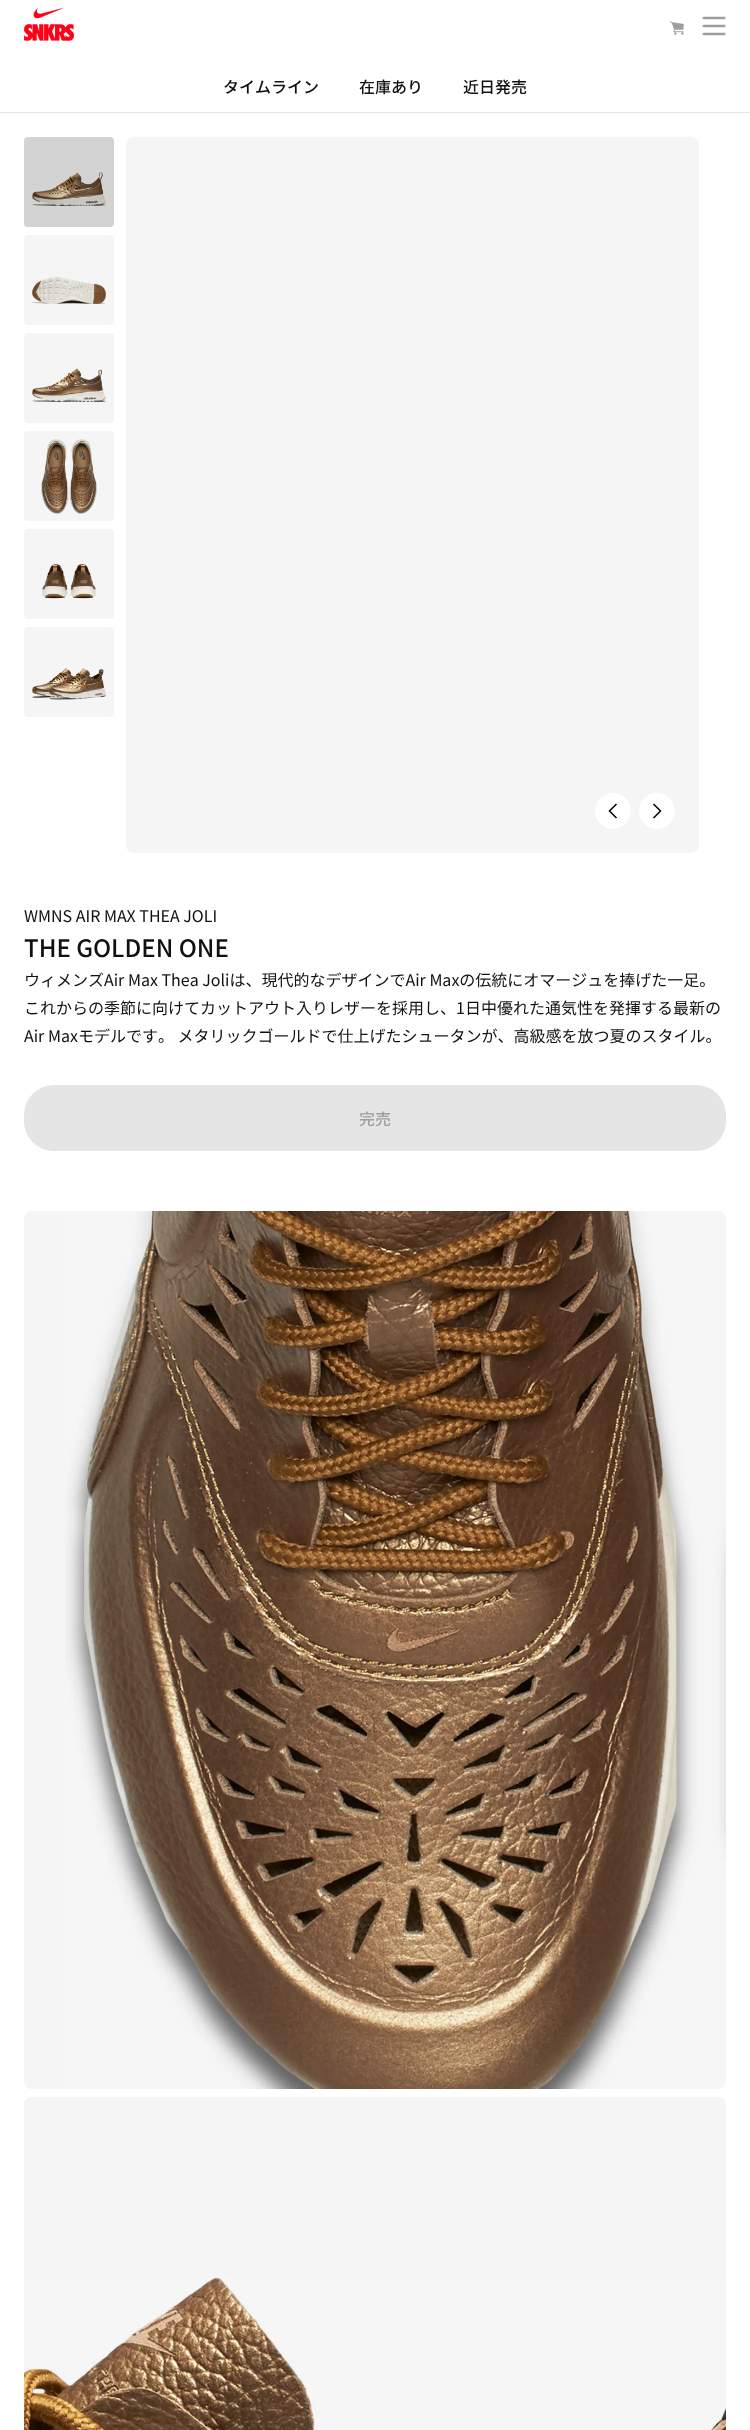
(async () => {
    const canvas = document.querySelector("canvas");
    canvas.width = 750;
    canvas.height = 2430;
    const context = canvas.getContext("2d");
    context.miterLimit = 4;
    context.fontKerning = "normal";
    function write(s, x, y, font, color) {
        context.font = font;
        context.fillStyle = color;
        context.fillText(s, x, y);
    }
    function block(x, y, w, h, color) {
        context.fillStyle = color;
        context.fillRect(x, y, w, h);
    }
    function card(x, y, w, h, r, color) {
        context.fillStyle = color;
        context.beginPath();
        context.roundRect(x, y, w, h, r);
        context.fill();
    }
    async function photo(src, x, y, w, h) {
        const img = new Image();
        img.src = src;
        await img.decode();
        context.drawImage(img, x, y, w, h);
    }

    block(0, 0, 750, 2430, "rgb(255, 255, 255)");
    await photo("media/1.png", 24, 7, 50, 34);
    await photo("media/2.png", 670, 21, 14, 14);
    context.beginPath();
    context.moveTo(704, 18);
    context.lineTo(724, 18);
    context.moveTo(704, 26);
    context.lineTo(724, 26);
    context.moveTo(704, 34);
    context.lineTo(724, 34);
    context.strokeStyle = "rgb(158, 158, 160)";
    context.lineWidth = 2.5;
    context.lineCap = "square";
    context.stroke();
    block(0, 112, 750, 1, "rgb(229, 229, 229)");
    write("タイムライン", 223, 93, "500 16px Noto Sans JP", "rgb(17, 17, 17)");
    write("在庫あり", 359, 93, "500 16px Noto Sans JP", "rgb(17, 17, 17)");
    write("近日発売", 463, 93, "500 16px Noto Sans JP", "rgb(17, 17, 17)");
    card(24, 137, 90, 90, 4, "rgb(245, 245, 245)");
    await photo("media/3.png", 32, 172, 74, 34);
    card(24, 137, 90, 90, 4, "rgba(18, 18, 18, 0.15)");
    card(24, 235, 90, 90, 4, "rgb(245, 245, 245)");
    await photo("media/4.png", 32, 276, 74, 28);
    card(24, 333, 90, 90, 4, "rgb(245, 245, 245)");
    await photo("media/5.png", 32, 368, 74, 34);
    card(24, 431, 90, 90, 4, "rgb(245, 245, 245)");
    await photo("media/6.png", 41, 439, 56, 75);
    card(24, 529, 90, 90, 4, "rgb(245, 245, 245)");
    await photo("media/7.png", 42, 564, 54, 35);
    card(24, 627, 90, 90, 4, "rgb(245, 245, 245)");
    await photo("media/8.png", 32, 668, 74, 32);
    card(126, 137, 573, 716, 8, "rgb(245, 245, 245)");
    context.fillStyle = "rgb(255, 255, 255)";
    context.beginPath();
    context.arc(613, 811, 18, 0, Math.PI * 2);
    context.fill();
    context.beginPath();
    context.arc(657, 811, 18, 0, Math.PI * 2);
    context.fill();
    context.beginPath();
    context.moveTo(616.5, 818);
    context.lineTo(609.5, 811);
    context.lineTo(616.5, 804);
    context.moveTo(653.5, 818);
    context.lineTo(660.5, 811);
    context.lineTo(653.5, 804);
    context.strokeStyle = "rgb(0, 0, 0)";
    context.lineWidth = 1.5;
    context.lineCap = "butt";
    context.stroke();
    write("WMNS AIR MAX THEA JOLI", 24, 922, "16px Noto Sans JP", "rgb(17, 17, 17)");
    write("THE GOLDEN ONE", 24, 957, "500 24px Noto Sans JP", "rgb(17, 17, 17)");
    write("ウィメンズAir Max Thea Joliは、現代的なデザインでAir Maxの伝統にオマージュを捧げた一足。", 24, 986, "16px Noto Sans JP", "rgb(17, 17, 17)");
    write("これからの季節に向けてカットアウト入りレザーを採用し、1日中優れた通気性を発揮する最新の", 24, 1014, "16px Noto Sans JP", "rgb(17, 17, 17)");
    write("Air Maxモデルです。 メタリックゴールドで仕上げたシュータンが、高級感を放つ夏のスタイル。", 24, 1042, "16px Noto Sans JP", "rgb(17, 17, 17)");
    card(24, 1085, 702, 66, 30, "rgb(229, 229, 229)");
    write("完売", 359, 1125, "500 16px Noto Sans JP", "rgb(158, 158, 160)");
    card(24, 1211, 702, 878, 8, "rgb(245, 245, 245)");
    await photo("media/9.png", 65, 1211, 661, 878);
    card(24, 2097, 702, 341, 8, "rgb(245, 245, 245)");
    await photo("media/10.png", 24, 2276, 702, 154);
})();
